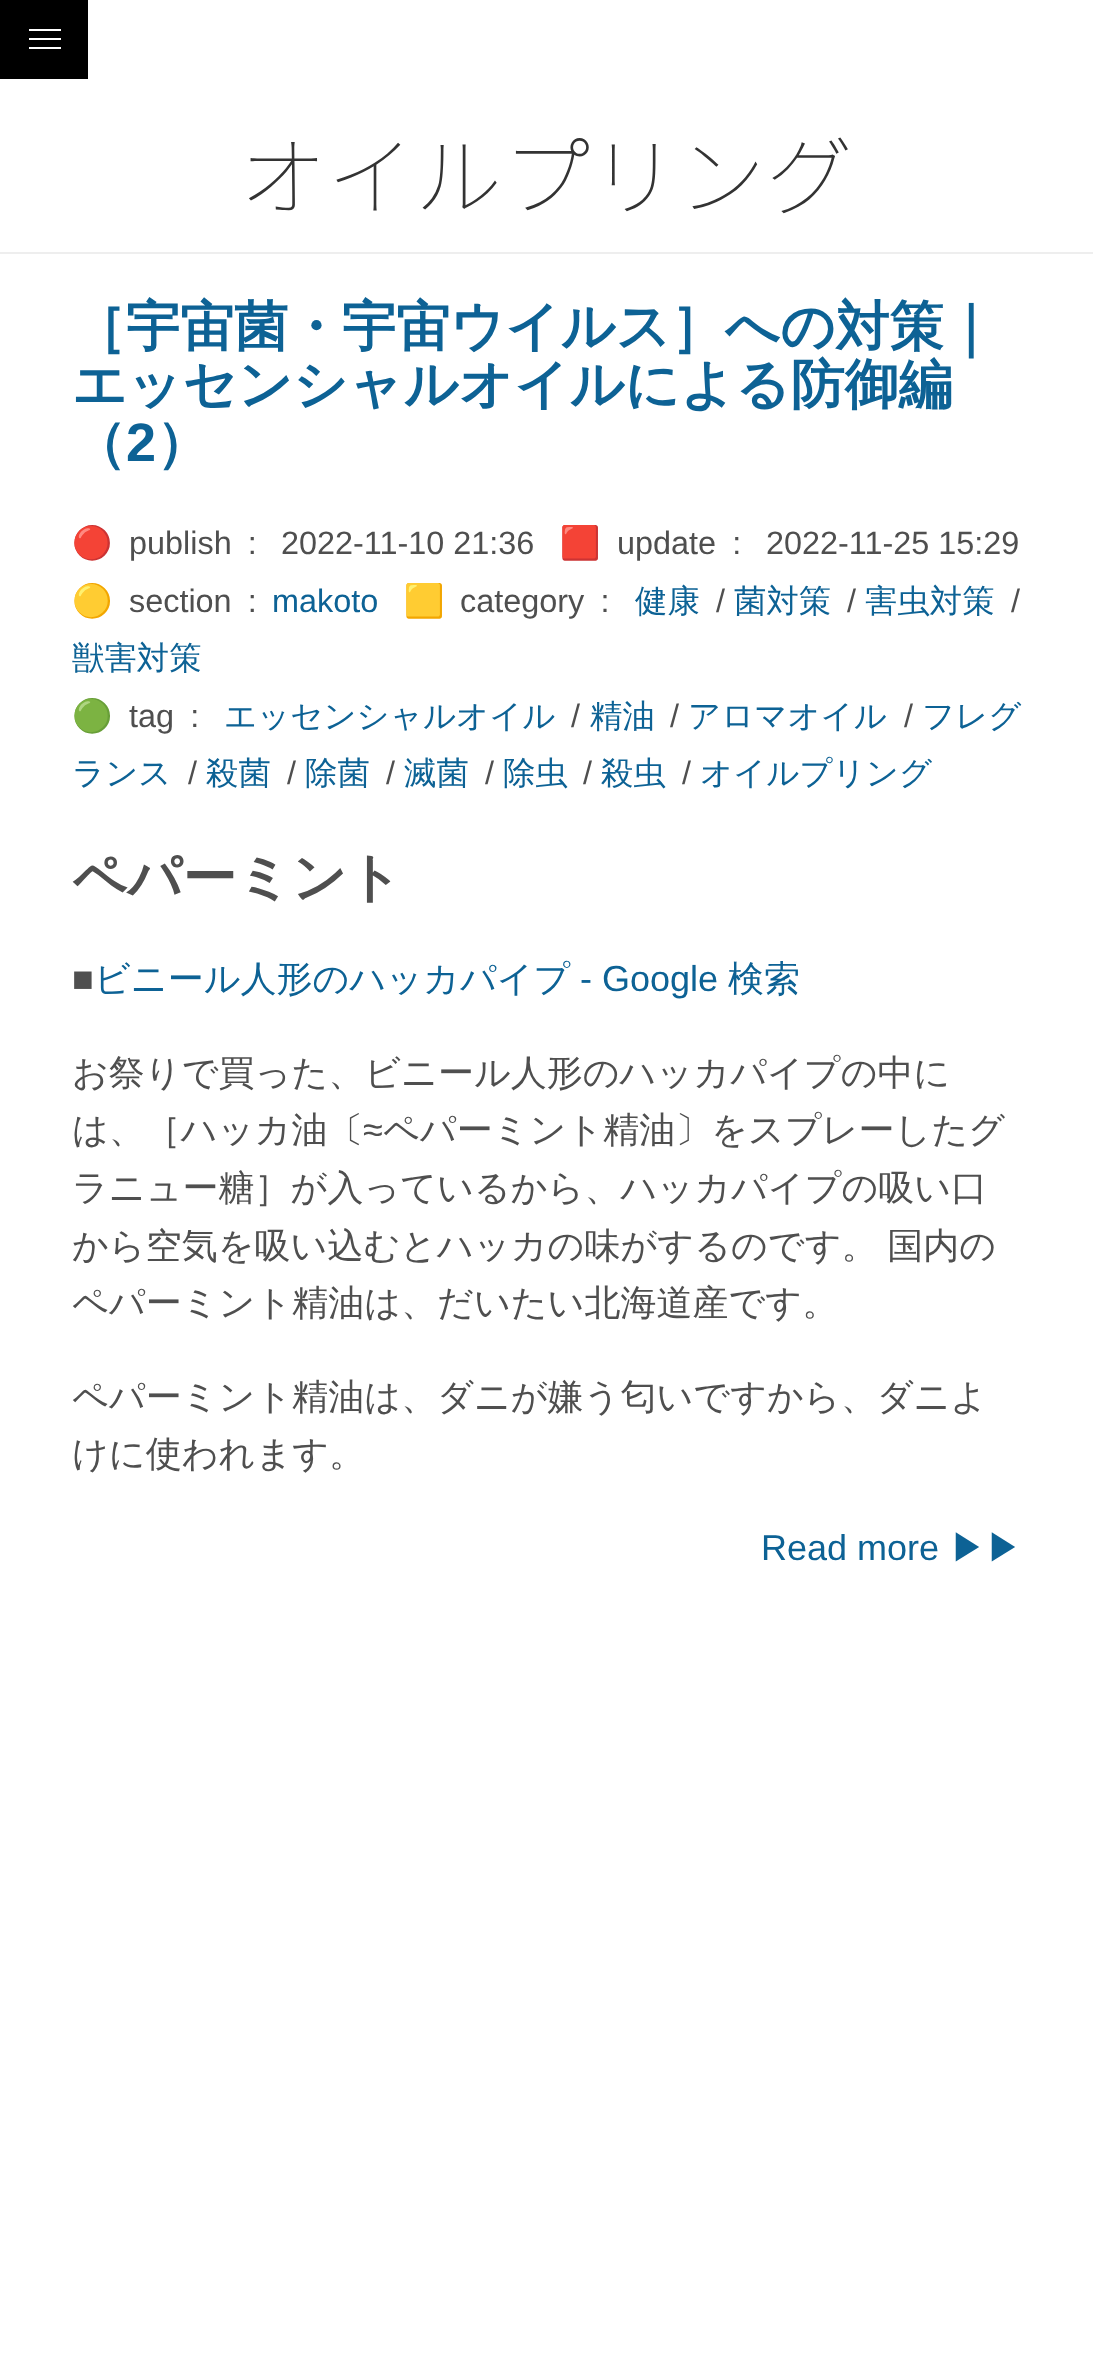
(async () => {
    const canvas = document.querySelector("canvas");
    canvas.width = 1093;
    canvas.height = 2366;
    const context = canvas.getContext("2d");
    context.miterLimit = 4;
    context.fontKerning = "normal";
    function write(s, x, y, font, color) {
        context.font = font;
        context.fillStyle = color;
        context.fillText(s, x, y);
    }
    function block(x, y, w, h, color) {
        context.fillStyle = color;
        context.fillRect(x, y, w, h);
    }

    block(0, 0, 1093, 2366, "rgb(255, 255, 255)");
    block(0, 0, 88, 79, "rgb(0, 0, 0)");
    block(29, 38, 32, 2, "rgb(255, 255, 255)");
    block(29, 29, 32, 2, "rgb(255, 255, 255)");
    block(29, 47, 32, 2, "rgb(255, 255, 255)");
    block(0, 252, 1093, 2, "rgb(238, 238, 238)");
    write("オイルプリング", 239, 209, "100 87.75px Noto Sans CJK JP", "rgb(51, 51, 51)");
    write("［宇宙菌・宇宙ウイルス］への対策｜", 72, 345, "bold 54px WenQuanYi Zen Hei", "rgb(13, 98, 149)");
    write("エッセンシャルオイルによる防御編", 72, 403, "bold 54px WenQuanYi Zen Hei", "rgb(13, 98, 149)");
    write("（", 72, 461, "bold 54px WenQuanYi Zen Hei", "rgb(13, 98, 149)");
    write("2", 126, 461, "bold 54px Liberation Sans", "rgb(13, 98, 149)");
    write("）", 156, 461, "bold 54px WenQuanYi Zen Hei", "rgb(13, 98, 149)");
    write("🔴", 72, 554, "32.4px Noto Color Emoji", "rgb(79, 79, 79)");
    write("publish :", 129, 554, "32.4px Liberation Sans", "rgb(79, 79, 79)");
    write("2022-11-10 21:36", 281, 554, "32.4px Liberation Sans", "rgb(79, 79, 79)");
    write("🟥", 560, 554, "32.4px Noto Color Emoji", "rgb(79, 79, 79)");
    write("update :", 617, 554, "32.4px Liberation Sans", "rgb(79, 79, 79)");
    write("2022-11-25 15:29", 766, 554, "32.4px Liberation Sans", "rgb(79, 79, 79)");
    write("🟡", 72, 612, "32.4px Noto Color Emoji", "rgb(79, 79, 79)");
    write("section :", 129, 612, "32.4px Liberation Sans", "rgb(79, 79, 79)");
    write("makoto", 272, 612, "32.4px Liberation Sans", "rgb(13, 98, 149)");
    write("🟨", 404, 612, "32.4px Noto Color Emoji", "rgb(79, 79, 79)");
    write("category :", 460, 612, "32.4px Liberation Sans", "rgb(79, 79, 79)");
    write("健康", 635, 612, "500 32.4px WenQuanYi Zen Hei", "rgb(13, 98, 149)");
    write("/", 716, 612, "32.4px Liberation Sans", "rgb(79, 79, 79)");
    write("菌対策", 734, 612, "500 32.4px WenQuanYi Zen Hei", "rgb(13, 98, 149)");
    write("/", 847, 612, "32.4px Liberation Sans", "rgb(79, 79, 79)");
    write("害虫対策", 865, 612, "500 32.4px WenQuanYi Zen Hei", "rgb(13, 98, 149)");
    write("/", 1011, 612, "32.4px Liberation Sans", "rgb(79, 79, 79)");
    write("獣害対策", 72, 669, "500 32.4px WenQuanYi Zen Hei", "rgb(13, 98, 149)");
    write("🟢", 72, 727, "32.4px Noto Color Emoji", "rgb(79, 79, 79)");
    write("tag :", 129, 727, "32.4px Liberation Sans", "rgb(79, 79, 79)");
    write("エッセンシャルオイル", 224, 727, "500 32.4px WenQuanYi Zen Hei", "rgb(13, 98, 149)");
    write("/", 571, 727, "32.4px Liberation Sans", "rgb(79, 79, 79)");
    write("精油", 590, 727, "500 32.4px WenQuanYi Zen Hei", "rgb(13, 98, 149)");
    write("/", 670, 727, "32.4px Liberation Sans", "rgb(79, 79, 79)");
    write("アロマオイル", 688, 727, "500 32.4px WenQuanYi Zen Hei", "rgb(13, 98, 149)");
    write("/", 904, 727, "32.4px Liberation Sans", "rgb(79, 79, 79)");
    write("フレグ", 922, 727, "500 32.4px WenQuanYi Zen Hei", "rgb(13, 98, 149)");
    write("ランス", 72, 784, "500 32.4px WenQuanYi Zen Hei", "rgb(13, 98, 149)");
    write("/", 188, 784, "32.4px Liberation Sans", "rgb(79, 79, 79)");
    write("殺菌", 206, 784, "500 32.4px WenQuanYi Zen Hei", "rgb(13, 98, 149)");
    write("/", 287, 784, "32.4px Liberation Sans", "rgb(79, 79, 79)");
    write("除菌", 305, 784, "500 32.4px WenQuanYi Zen Hei", "rgb(13, 98, 149)");
    write("/", 386, 784, "32.4px Liberation Sans", "rgb(79, 79, 79)");
    write("滅菌", 404, 784, "500 32.4px WenQuanYi Zen Hei", "rgb(13, 98, 149)");
    write("/", 485, 784, "32.4px Liberation Sans", "rgb(79, 79, 79)");
    write("除虫", 503, 784, "500 32.4px WenQuanYi Zen Hei", "rgb(13, 98, 149)");
    write("/", 583, 784, "32.4px Liberation Sans", "rgb(79, 79, 79)");
    write("殺虫", 601, 784, "500 32.4px WenQuanYi Zen Hei", "rgb(13, 98, 149)");
    write("/", 682, 784, "32.4px Liberation Sans", "rgb(79, 79, 79)");
    write("オイルプリング", 700, 784, "500 32.4px WenQuanYi Zen Hei", "rgb(13, 98, 149)");
    write("ペパーミント", 72, 896, "bold 54px WenQuanYi Zen Hei", "rgb(79, 79, 79)");
    write("■", 72, 991, "36px Liberation Sans", "rgb(79, 79, 79)");
    write("ビニール人形のハッカパイプ", 94, 991, "500 36px WenQuanYi Zen Hei", "rgb(13, 98, 149)");
    write("- Google", 580, 991, "36px Liberation Sans", "rgb(13, 98, 149)");
    write("検索", 728, 991, "500 36px WenQuanYi Zen Hei", "rgb(13, 98, 149)");
    write("お祭りで買った、ビニール人形のハッカパイプの中に", 72, 1085, "500 36px WenQuanYi Zen Hei", "rgb(79, 79, 79)");
    write("は、［ハッカ油〔", 72, 1142, "500 36px WenQuanYi Zen Hei", "rgb(79, 79, 79)");
    write("≈", 363, 1142, "36px Liberation Sans", "rgb(79, 79, 79)");
    write("ペパーミント精油〕をスプレーしたグ", 383, 1142, "500 36px WenQuanYi Zen Hei", "rgb(79, 79, 79)");
    write("ラニュー糖］が入っているから、ハッカパイプの吸い口", 72, 1200, "500 36px WenQuanYi Zen Hei", "rgb(79, 79, 79)");
    context.wordSpacing = "-1px";
    write("から空気を吸い込むとハッカの味がするのです。 国内の", 72, 1258, "500 36px WenQuanYi Zen Hei", "rgb(79, 79, 79)");
    context.wordSpacing = "0px";
    write("ペパーミント精油は、だいたい北海道産です。", 72, 1315, "500 36px WenQuanYi Zen Hei", "rgb(79, 79, 79)");
    write("ペパーミント精油は、ダニが嫌う匂いですから、ダニよ", 72, 1409, "500 36px WenQuanYi Zen Hei", "rgb(79, 79, 79)");
    write("けに使われます。", 72, 1466, "500 36px WenQuanYi Zen Hei", "rgb(79, 79, 79)");
    write("Read more", 761, 1560, "36px Liberation Sans", "rgb(13, 98, 149)");
    write("▶▶", 950, 1560, "500 36px WenQuanYi Zen Hei", "rgb(13, 98, 149)");
})();
